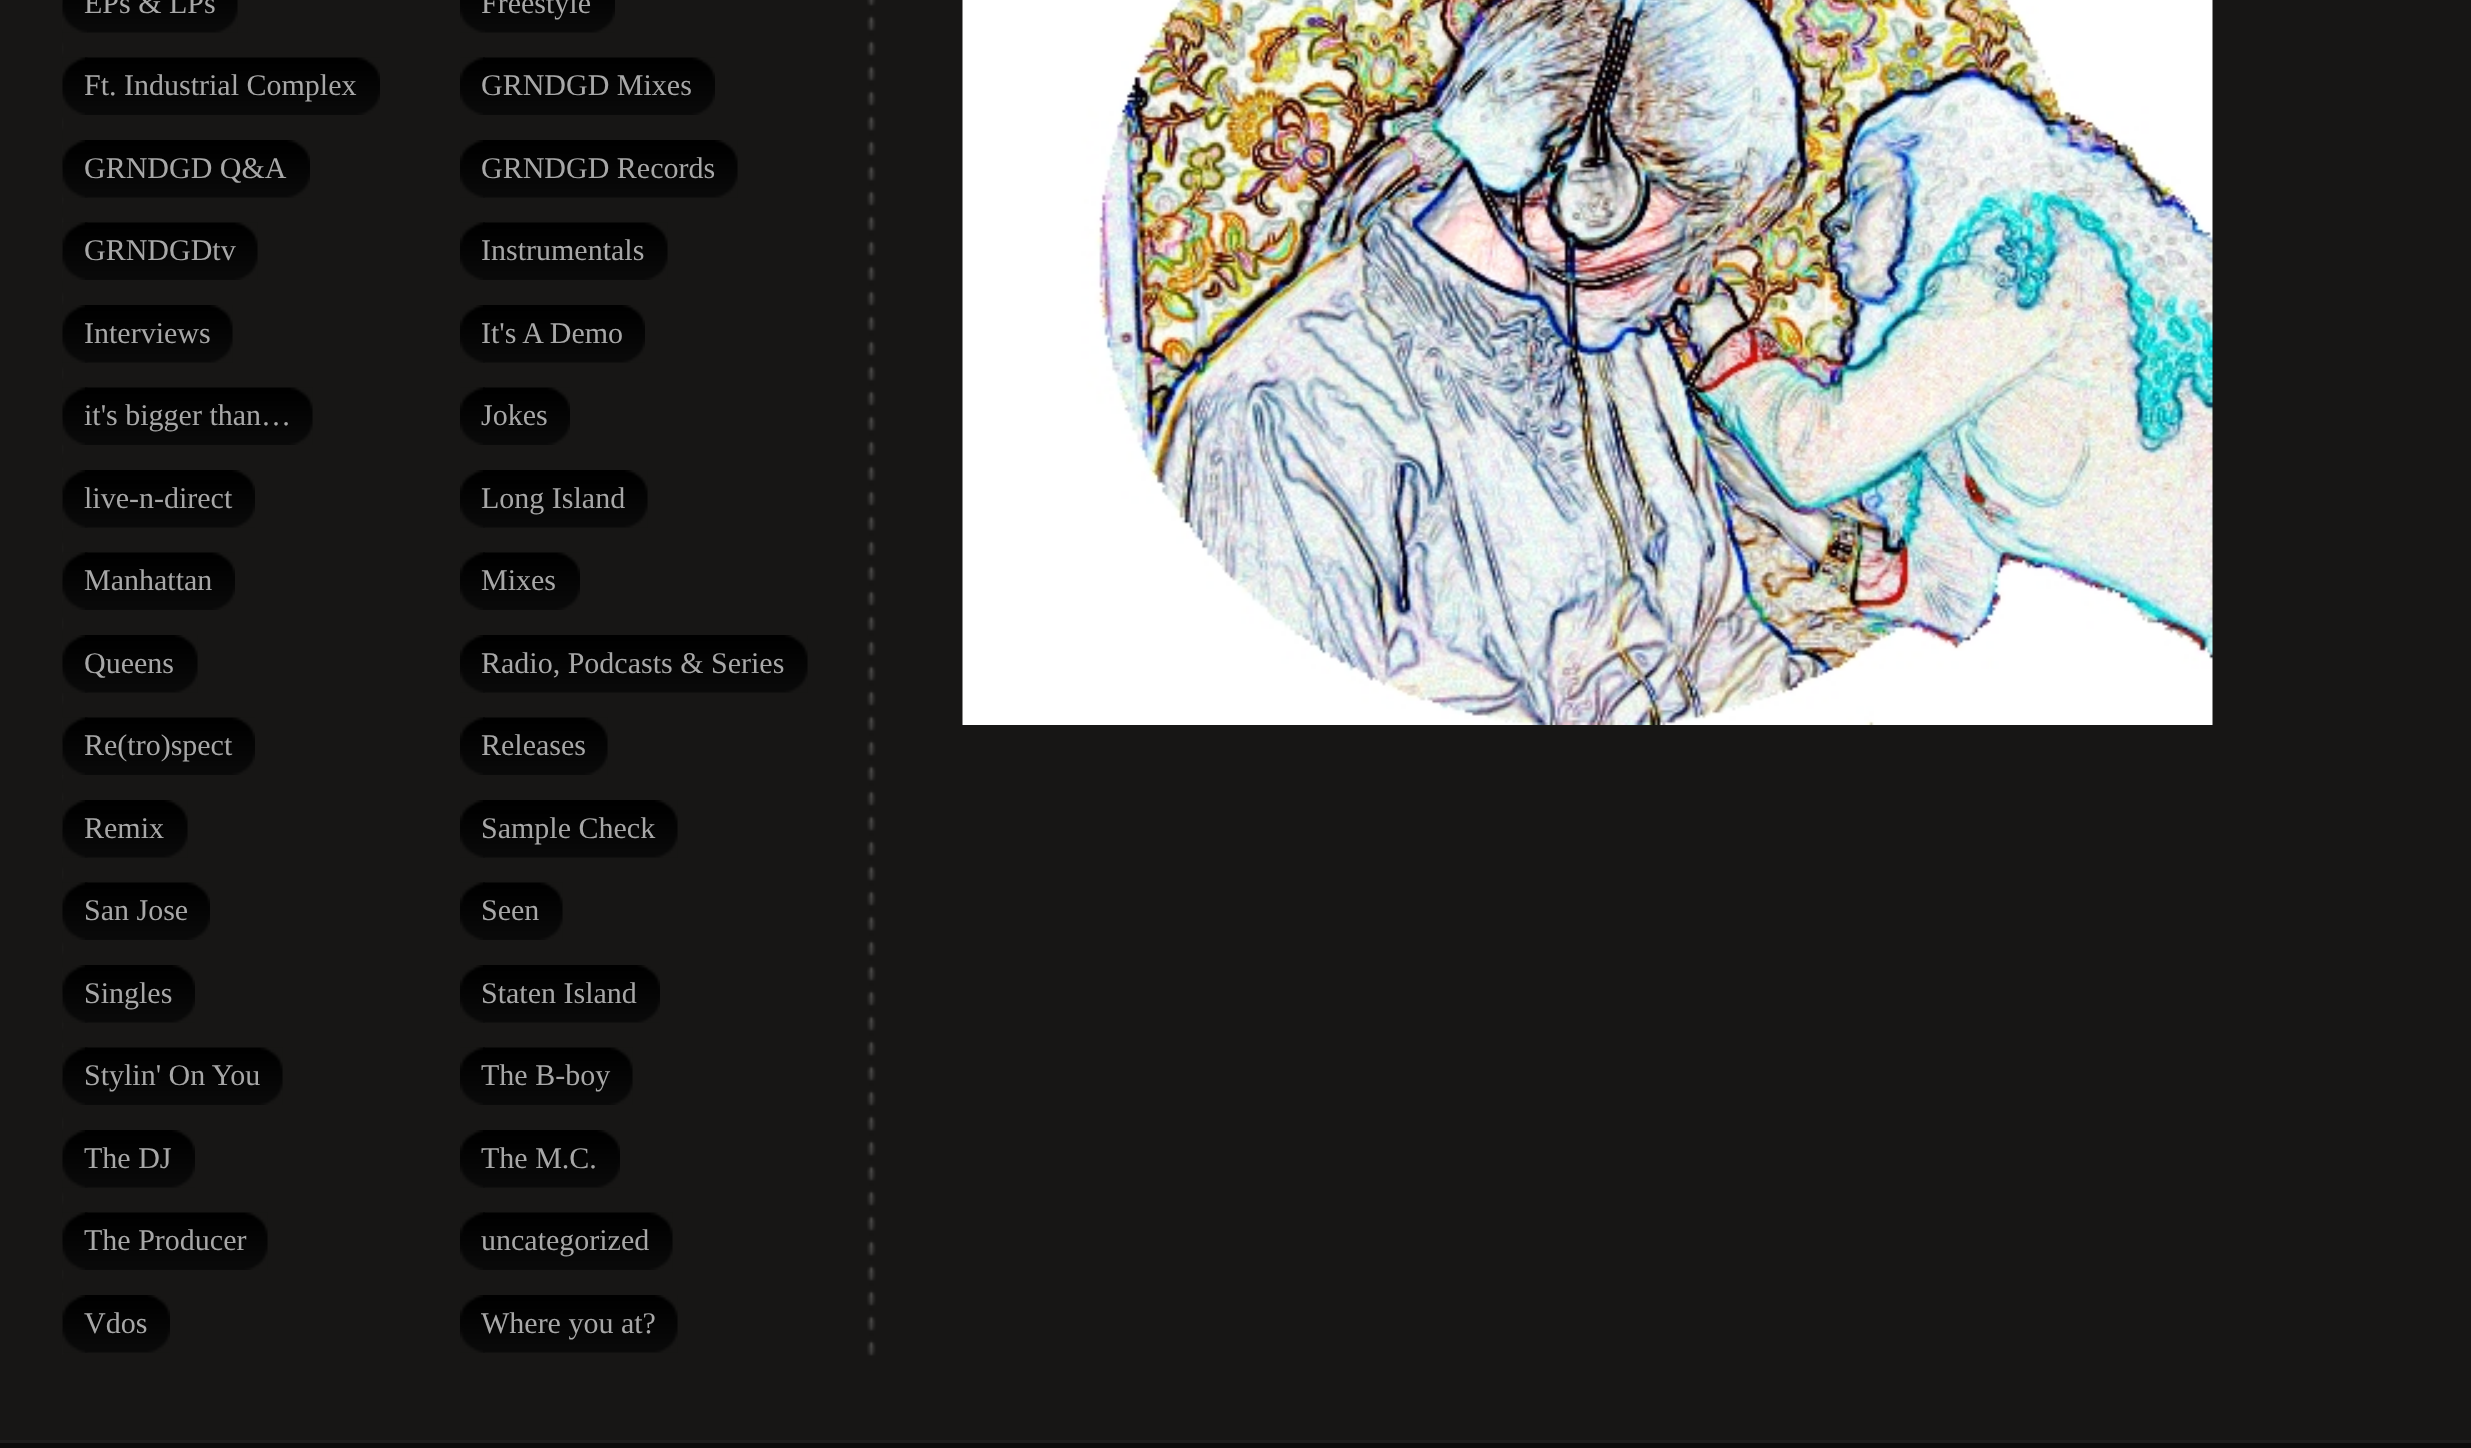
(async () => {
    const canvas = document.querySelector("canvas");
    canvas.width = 2471;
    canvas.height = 1448;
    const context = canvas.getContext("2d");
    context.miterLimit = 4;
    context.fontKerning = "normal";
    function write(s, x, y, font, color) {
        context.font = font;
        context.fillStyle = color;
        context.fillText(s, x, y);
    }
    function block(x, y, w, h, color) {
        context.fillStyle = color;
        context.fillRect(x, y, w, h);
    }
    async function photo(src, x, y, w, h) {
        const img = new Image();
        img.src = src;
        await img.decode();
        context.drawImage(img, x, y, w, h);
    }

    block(0, 0, 2471, 1448, "rgb(23, 22, 21)");
    block(0, 1440, 2471, 3, "rgb(30, 29, 29)");
    await photo("media/1.png", 62, 0, 814, 1356);
    await photo("media/2.png", 62, 0, 26, 33);
    await photo("media/3.png", 87, 0, 151, 33);
    write("EPs & LPs", 84, 13, "30px Liberation Serif", "rgb(167, 167, 167)");
    await photo("media/4.png", 460, 0, 25, 33);
    await photo("media/5.png", 485, 0, 130, 33);
    write("Freestyle", 481, 13, "30px Liberation Serif", "rgb(167, 167, 167)");
    await photo("media/6.png", 62, 57, 26, 58);
    await photo("media/7.png", 85, 57, 295, 58);
    write("Ft. Industrial Complex", 84, 95, "30px Liberation Serif", "rgb(167, 167, 167)");
    await photo("media/8.png", 460, 57, 25, 58);
    await photo("media/9.png", 483, 57, 232, 58);
    write("GRNDGD Mixes", 481, 95, "30px Liberation Serif", "rgb(167, 167, 167)");
    await photo("media/10.png", 62, 140, 26, 58);
    await photo("media/11.png", 85, 140, 225, 58);
    write("GRNDGD Q&A", 84, 178, "30px Liberation Serif", "rgb(167, 167, 167)");
    await photo("media/12.png", 460, 140, 25, 58);
    await photo("media/13.png", 483, 140, 255, 58);
    write("GRNDGD Records", 481, 178, "30px Liberation Serif", "rgb(167, 167, 167)");
    await photo("media/14.png", 62, 222, 26, 58);
    await photo("media/15.png", 85, 222, 173, 58);
    write("GRNDGDtv", 84, 260, "30px Liberation Serif", "rgb(167, 167, 167)");
    await photo("media/8.png", 460, 222, 25, 58);
    await photo("media/16.png", 483, 222, 185, 58);
    write("Instrumentals", 481, 260, "30px Liberation Serif", "rgb(167, 167, 167)");
    await photo("media/17.png", 62, 305, 26, 58);
    await photo("media/18.png", 85, 305, 148, 58);
    write("Interviews", 84, 343, "30px Liberation Serif", "rgb(167, 167, 167)");
    await photo("media/12.png", 460, 305, 25, 58);
    await photo("media/19.png", 483, 305, 162, 58);
    write("It's A Demo", 481, 343, "30px Liberation Serif", "rgb(167, 167, 167)");
    await photo("media/20.png", 62, 387, 26, 58);
    await photo("media/21.png", 85, 387, 228, 58);
    write("it's bigger than…", 84, 425, "30px Liberation Serif", "rgb(167, 167, 167)");
    await photo("media/8.png", 460, 387, 25, 58);
    await photo("media/22.png", 483, 387, 87, 58);
    write("Jokes", 481, 425, "30px Liberation Serif", "rgb(167, 167, 167)");
    await photo("media/23.png", 62, 470, 26, 58);
    await photo("media/24.png", 85, 470, 170, 58);
    write("live-n-direct", 84, 508, "30px Liberation Serif", "rgb(167, 167, 167)");
    await photo("media/25.png", 460, 470, 25, 58);
    await photo("media/26.png", 483, 470, 165, 58);
    write("Long Island", 481, 508, "30px Liberation Serif", "rgb(167, 167, 167)");
    await photo("media/27.png", 62, 552, 26, 58);
    await photo("media/28.png", 85, 552, 150, 58);
    write("Manhattan", 84, 590, "30px Liberation Serif", "rgb(167, 167, 167)");
    await photo("media/8.png", 460, 552, 25, 58);
    await photo("media/29.png", 483, 552, 97, 58);
    write("Mixes", 481, 590, "30px Liberation Serif", "rgb(167, 167, 167)");
    await photo("media/30.png", 62, 635, 26, 58);
    await photo("media/31.png", 85, 635, 113, 58);
    write("Queens", 84, 673, "30px Liberation Serif", "rgb(167, 167, 167)");
    await photo("media/12.png", 460, 635, 25, 58);
    await photo("media/32.png", 483, 635, 325, 58);
    write("Radio, Podcasts & Series", 481, 673, "30px Liberation Serif", "rgb(167, 167, 167)");
    await photo("media/33.png", 62, 717, 26, 58);
    await photo("media/34.png", 85, 717, 170, 58);
    write("Re(tro)spect", 84, 755, "30px Liberation Serif", "rgb(167, 167, 167)");
    await photo("media/8.png", 460, 717, 25, 58);
    await photo("media/35.png", 483, 717, 125, 58);
    write("Releases", 481, 755, "30px Liberation Serif", "rgb(167, 167, 167)");
    await photo("media/36.png", 62, 800, 26, 58);
    await photo("media/37.png", 85, 800, 103, 58);
    write("Remix", 84, 838, "30px Liberation Serif", "rgb(167, 167, 167)");
    await photo("media/12.png", 460, 800, 25, 58);
    await photo("media/38.png", 483, 800, 195, 58);
    write("Sample Check", 481, 838, "30px Liberation Serif", "rgb(167, 167, 167)");
    await photo("media/6.png", 62, 882, 26, 58);
    await photo("media/39.png", 85, 882, 125, 58);
    write("San Jose", 84, 920, "30px Liberation Serif", "rgb(167, 167, 167)");
    await photo("media/8.png", 460, 882, 25, 58);
    await photo("media/40.png", 483, 882, 80, 58);
    write("Seen", 481, 920, "30px Liberation Serif", "rgb(167, 167, 167)");
    await photo("media/10.png", 62, 965, 26, 58);
    await photo("media/41.png", 85, 965, 110, 58);
    write("Singles", 84, 1003, "30px Liberation Serif", "rgb(167, 167, 167)");
    await photo("media/12.png", 460, 965, 25, 58);
    await photo("media/42.png", 483, 965, 177, 58);
    write("Staten Island", 481, 1003, "30px Liberation Serif", "rgb(167, 167, 167)");
    await photo("media/43.png", 62, 1047, 26, 58);
    await photo("media/44.png", 85, 1047, 198, 58);
    write("Stylin' On You", 84, 1085, "30px Liberation Serif", "rgb(167, 167, 167)");
    await photo("media/45.png", 460, 1047, 25, 58);
    await photo("media/46.png", 483, 1047, 150, 58);
    write("The B-boy", 481, 1085, "30px Liberation Serif", "rgb(167, 167, 167)");
    await photo("media/17.png", 62, 1130, 26, 58);
    await photo("media/47.png", 85, 1130, 110, 58);
    write("The DJ", 84, 1168, "30px Liberation Serif", "rgb(167, 167, 167)");
    await photo("media/12.png", 460, 1130, 25, 58);
    await photo("media/48.png", 483, 1130, 137, 58);
    write("The M.C.", 481, 1168, "30px Liberation Serif", "rgb(167, 167, 167)");
    await photo("media/20.png", 62, 1212, 26, 58);
    await photo("media/49.png", 85, 1212, 183, 58);
    write("The Producer", 84, 1250, "30px Liberation Serif", "rgb(167, 167, 167)");
    await photo("media/8.png", 460, 1212, 25, 58);
    await photo("media/50.png", 483, 1212, 190, 58);
    write("uncategorized", 481, 1250, "30px Liberation Serif", "rgb(167, 167, 167)");
    await photo("media/51.png", 62, 1295, 26, 58);
    await photo("media/52.png", 85, 1295, 85, 58);
    write("Vdos", 84, 1333, "30px Liberation Serif", "rgb(167, 167, 167)");
    await photo("media/12.png", 460, 1295, 25, 58);
    await photo("media/53.png", 483, 1295, 195, 58);
    write("Where you at?", 481, 1333, "30px Liberation Serif", "rgb(167, 167, 167)");
    await photo("media/54.png", 962, 0, 1251, 725);
    block(0, 1443, 2471, 5, "rgb(12, 11, 11)");
})();
